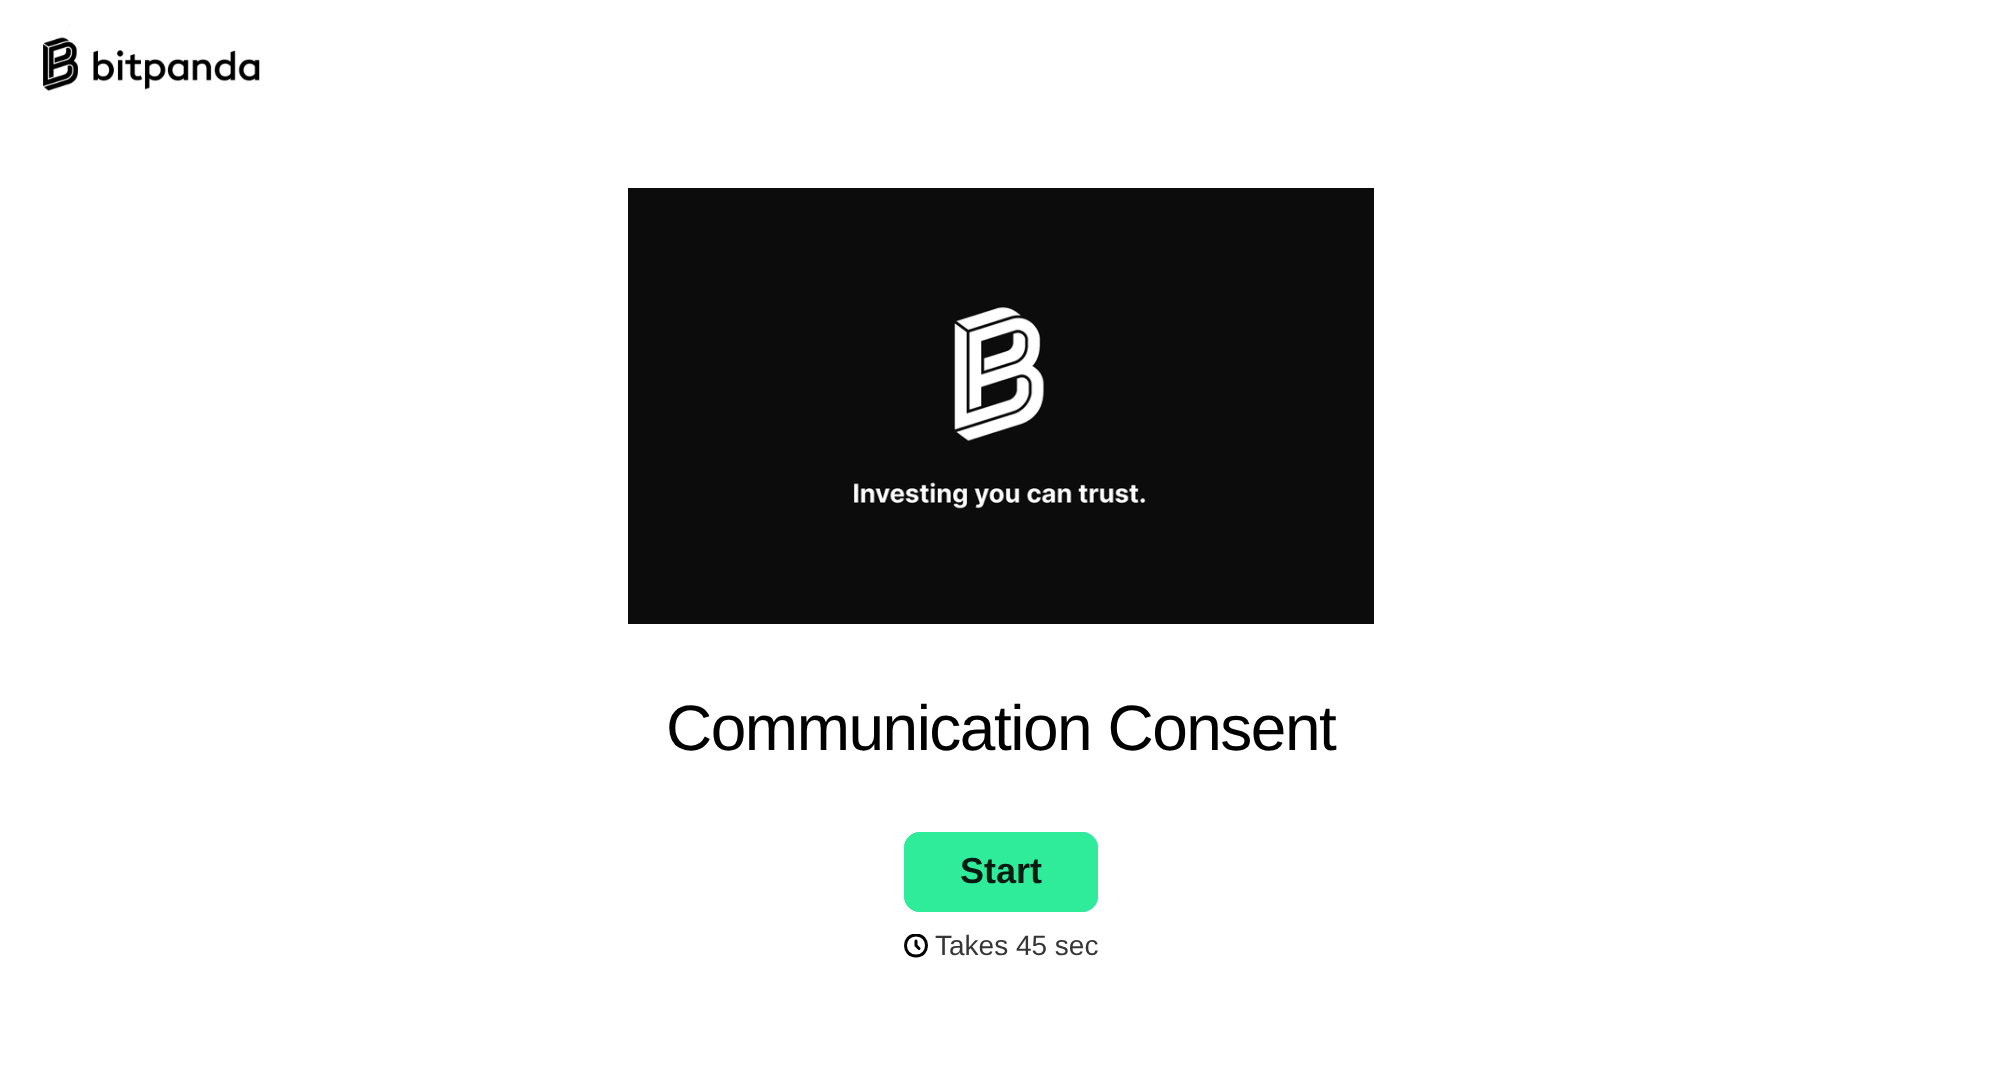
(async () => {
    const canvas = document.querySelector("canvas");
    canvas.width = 2001;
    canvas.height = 1090;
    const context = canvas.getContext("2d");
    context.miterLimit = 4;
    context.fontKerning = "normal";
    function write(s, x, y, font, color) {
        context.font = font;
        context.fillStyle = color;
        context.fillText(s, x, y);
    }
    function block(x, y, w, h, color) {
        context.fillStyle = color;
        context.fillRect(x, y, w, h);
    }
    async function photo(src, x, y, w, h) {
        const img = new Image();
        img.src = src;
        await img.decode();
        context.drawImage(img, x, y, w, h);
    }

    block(0, 0, 2001, 1090, "rgb(255, 255, 255)");
    await photo("media/1.png", 43, 25, 217, 67);
    await photo("media/2.png", 628, 188, 746, 436);
    context.letterSpacing = "-1.5px";
    write("Communication Consent", 666, 750, "64px Liberation Sans", "rgb(1, 1, 1)");
    context.beginPath();
    context.roundRect(905, 833, 192, 78, 15);
    context.strokeStyle = "rgb(47, 236, 155)";
    context.lineWidth = 2;
    context.stroke();
    context.fillStyle = "rgb(47, 236, 155)";
    context.filter = "blur(0.5px)";
    context.beginPath();
    context.roundRect(904, 832, 194, 80, 16);
    context.fill();
    context.filter = "none";
    context.letterSpacing = "0px";
    write("Start", 960, 883, "bold 36px Liberation Sans", "rgb(7, 27, 18)");
    context.beginPath();
    context.moveTo(919, 948.5);
    context.lineTo(916, 945.5);
    context.moveTo(916, 945.5);
    context.lineTo(916, 941);
    context.strokeStyle = "rgb(3, 3, 3)";
    context.lineWidth = 3;
    context.lineCap = "round";
    context.lineJoin = "round";
    context.stroke();
    context.save();
    context.beginPath();
    context.rect(904, 934, 24, 24);
    context.clip();
    context.beginPath();
    context.moveTo(916, 956);
    context.bezierCurveTo(930, 956, 930, 935, 916, 935);
    context.bezierCurveTo(902, 935, 902, 956, 916, 956);
    context.closePath();
    context.stroke();
    context.restore();
    write("Takes 45 sec", 935, 955, "28px Liberation Sans", "rgb(54, 54, 54)");
})();
